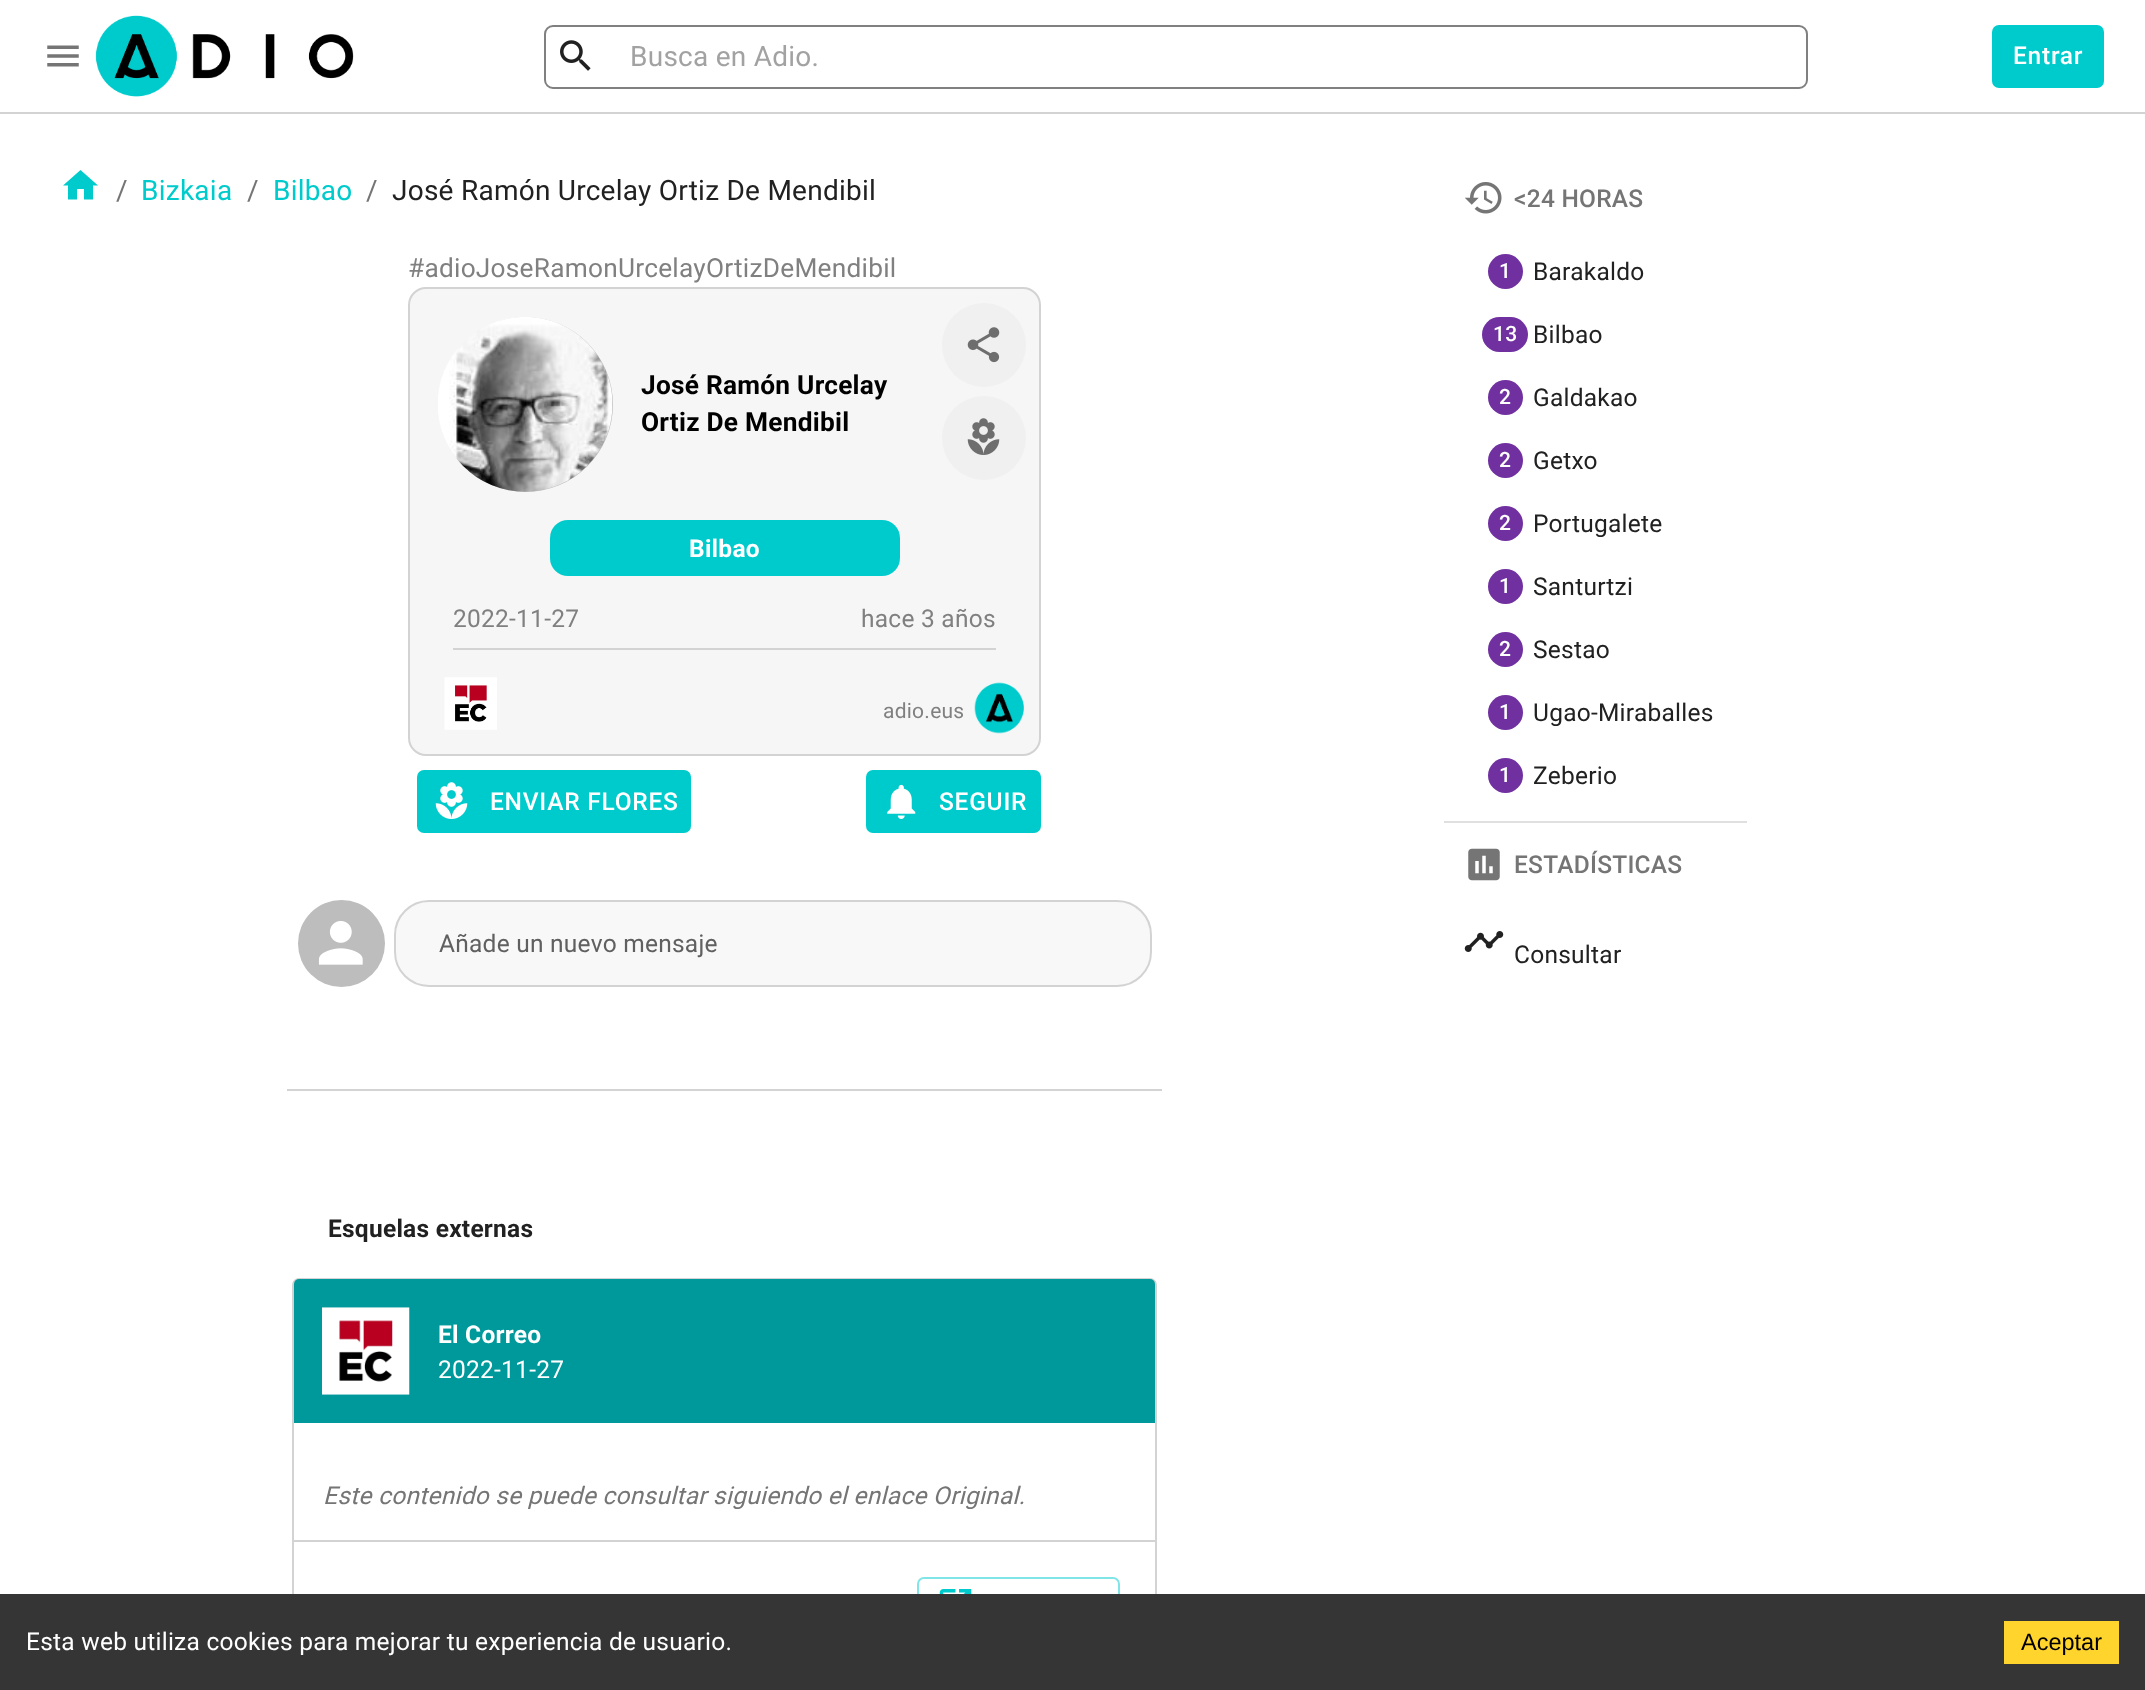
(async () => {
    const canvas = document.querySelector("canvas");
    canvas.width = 2145;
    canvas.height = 1690;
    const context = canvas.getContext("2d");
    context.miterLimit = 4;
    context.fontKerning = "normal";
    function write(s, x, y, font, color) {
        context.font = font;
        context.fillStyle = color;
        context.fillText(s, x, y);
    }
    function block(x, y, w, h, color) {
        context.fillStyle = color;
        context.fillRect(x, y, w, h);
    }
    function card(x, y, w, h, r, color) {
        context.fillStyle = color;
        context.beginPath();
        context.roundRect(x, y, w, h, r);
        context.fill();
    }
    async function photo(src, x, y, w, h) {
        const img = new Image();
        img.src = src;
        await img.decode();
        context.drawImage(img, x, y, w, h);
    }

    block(0, 0, 2145, 1690, "rgb(255, 255, 255)");
    block(0, 112, 2145, 2, "rgb(211, 211, 211)");
    await photo("media/1.png", 47, 45, 32, 22);
    await photo("media/2.png", 95, 15, 259, 82);
    await photo("media/3.png", 560, 40, 31, 31);
    context.beginPath();
    context.roundRect(545, 26, 1262, 62, 8);
    context.strokeStyle = "rgb(128, 128, 128)";
    context.lineWidth = 2;
    context.stroke();
    context.letterSpacing = "0.25px";
    write("Busca en Adio.", 630, 66, "28px Roboto", "rgb(162, 162, 162)");
    card(1992, 25, 112, 63, 7, "rgb(0, 203, 204)");
    context.letterSpacing = "0.75px";
    write("Entrar", 2013, 64, "500 24.5px Roboto", "rgb(255, 255, 255)");
    context.fillStyle = "rgb(0, 203, 204)";
    context.beginPath();
    context.moveTo(77, 199.5);
    context.lineTo(77, 189);
    context.lineTo(84, 189);
    context.lineTo(84, 199.5);
    context.lineTo(93, 199.5);
    context.lineTo(93, 185.5);
    context.lineTo(98, 185.5);
    context.lineTo(80.5, 170);
    context.lineTo(63, 185.5);
    context.lineTo(68, 185.5);
    context.lineTo(68, 199.5);
    context.closePath();
    context.fill();
    context.letterSpacing = "0.25px";
    write("/", 116, 200, "28px Roboto", "rgb(117, 117, 117)");
    write("Bizkaia", 141, 200, "28px Roboto", "rgb(0, 203, 204)");
    write("/", 247, 200, "28px Roboto", "rgb(117, 117, 117)");
    write("Bilbao", 273, 200, "28px Roboto", "rgb(0, 203, 204)");
    write("/", 366, 200, "28px Roboto", "rgb(117, 117, 117)");
    write("José Ramón Urcelay Ortiz De Mendibil", 392, 200, "28px Roboto", "rgb(33, 33, 33)");
    write("#adioJoseRamonUrcelayOrtizDeMendibil", 408, 277, "26.25px Roboto", "rgb(128, 128, 128)");
    context.fillStyle = "rgb(246, 246, 246)";
    context.beginPath();
    context.roundRect(409, 288, 631, 467, 17);
    context.fill();
    context.strokeStyle = "rgb(211, 211, 211)";
    context.stroke();
    context.fillStyle = "rgb(189, 189, 189)";
    context.beginPath();
    context.arc(525.5, 404.5, 87.5, 0, Math.PI * 2);
    context.fill();
    await photo("media/4.png", 438, 317, 175, 175);
    write("José Ramón Urcelay", 641, 394, "bold 26.25px Roboto", "rgb(0, 0, 0)");
    write("Ortiz De Mendibil", 641, 431, "bold 26.25px Roboto", "rgb(0, 0, 0)");
    context.fillStyle = "rgb(240, 240, 240)";
    context.beginPath();
    context.arc(984, 345, 42, 0, Math.PI * 2);
    context.fill();
    await photo("media/5.png", 967, 327, 33, 36);
    context.beginPath();
    context.arc(984, 438, 42, 0, Math.PI * 2);
    context.fill();
    await photo("media/6.png", 967, 418, 33, 37);
    card(550, 520, 350, 56, 18, "rgb(0, 203, 204)");
    write("Bilbao", 689, 557, "bold 24.5px Roboto", "rgb(255, 255, 255)");
    write("2022-11-27", 453, 627, "24.5px Roboto", "rgb(128, 128, 128)");
    write("hace 3 años", 861, 627, "24.5px Roboto", "rgb(128, 128, 128)");
    block(453, 648, 543, 2, "rgb(211, 211, 211)");
    await photo("media/7.png", 444, 677, 53, 53);
    write("adio.eus", 883, 718, "21px Roboto", "rgb(128, 128, 128)");
    await photo("media/8.png", 974, 682, 50, 52);
    card(417, 770, 274, 63, 7, "rgb(0, 203, 204)");
    await photo("media/9.png", 435, 782, 33, 37);
    context.letterSpacing = "0.75px";
    write("ENVIAR FLORES", 490, 810, "500 24.5px Roboto", "rgb(255, 255, 255)");
    card(866, 770, 175, 63, 7, "rgb(0, 203, 204)");
    await photo("media/10.png", 887, 784, 29, 35);
    write("SEGUIR", 939, 810, "500 24.5px Roboto", "rgb(255, 255, 255)");
    context.fillStyle = "rgb(189, 189, 189)";
    context.beginPath();
    context.arc(341.5, 943.5, 43.5, 0, Math.PI * 2);
    context.fill();
    await photo("media/11.png", 318, 921, 45, 44);
    context.fillStyle = "rgb(248, 248, 248)";
    context.beginPath();
    context.roundRect(395, 901, 756, 85, 34);
    context.fill();
    context.stroke();
    context.letterSpacing = "0.25px";
    write("Añade un nuevo mensaje", 439, 952, "24.5px Roboto", "rgb(96, 96, 96)");
    block(287, 1089, 875, 2, "rgb(211, 211, 211)");
    write("Esquelas externas", 328, 1237, "bold 24.5px Roboto", "rgb(33, 33, 33)");
    context.beginPath();
    context.roundRect(293, 1279, 863, 390, 6);
    context.stroke();
    context.fillStyle = "rgb(0, 153, 155)";
    context.beginPath();
    context.roundRect(294, 1279, 861, 144, [5, 5, 0, 0]);
    context.fill();
    await photo("media/12.png", 322, 1307, 88, 88);
    write("El Correo", 438, 1343, "bold 24.5px Roboto", "rgb(255, 255, 255)");
    write("2022-11-27", 438, 1378, "24.5px Roboto", "rgb(255, 255, 255)");
    write("Este contenido se puede consultar siguiendo el enlace Original.", 323, 1504, "italic 24.5px Roboto", "rgb(117, 117, 117)");
    block(294, 1540, 861, 2, "rgb(211, 211, 211)");
    context.beginPath();
    context.roundRect(918, 1578, 201, 54, 6);
    context.strokeStyle = "rgb(128, 229, 230)";
    context.stroke();
    await photo("media/13.png", 939, 1589, 33, 5);
    await photo("media/14.png", 1465, 182, 37, 32);
    write("<24 HORAS", 1514, 207, "500 24.5px Roboto", "rgb(117, 117, 117)");
    context.fillStyle = "rgb(112, 48, 160)";
    context.beginPath();
    context.arc(1505.5, 271.5, 17.5, 0, Math.PI * 2);
    context.fill();
    write("1", 1499, 278, "500 21px Roboto", "rgb(255, 255, 255)");
    write("Barakaldo", 1533, 280, "24.5px Roboto", "rgb(33, 33, 33)");
    card(1482, 317, 46, 35, 17.5, "rgb(112, 48, 160)");
    write("13", 1493, 341, "500 21px Roboto", "rgb(255, 255, 255)");
    write("Bilbao", 1533, 343, "24.5px Roboto", "rgb(33, 33, 33)");
    context.fillStyle = "rgb(112, 48, 160)";
    context.beginPath();
    context.arc(1505.5, 397.5, 17.5, 0, Math.PI * 2);
    context.fill();
    write("2", 1499, 404, "500 21px Roboto", "rgb(255, 255, 255)");
    write("Galdakao", 1533, 406, "24.5px Roboto", "rgb(33, 33, 33)");
    context.fillStyle = "rgb(112, 48, 160)";
    context.beginPath();
    context.arc(1505.5, 460.5, 17.5, 0, Math.PI * 2);
    context.fill();
    write("2", 1499, 467, "500 21px Roboto", "rgb(255, 255, 255)");
    write("Getxo", 1533, 469, "24.5px Roboto", "rgb(33, 33, 33)");
    context.fillStyle = "rgb(112, 48, 160)";
    context.beginPath();
    context.arc(1505.5, 523.5, 17.5, 0, Math.PI * 2);
    context.fill();
    write("2", 1499, 530, "500 21px Roboto", "rgb(255, 255, 255)");
    write("Portugalete", 1533, 532, "24.5px Roboto", "rgb(33, 33, 33)");
    context.fillStyle = "rgb(112, 48, 160)";
    context.beginPath();
    context.arc(1505.5, 586.5, 17.5, 0, Math.PI * 2);
    context.fill();
    write("1", 1499, 593, "500 21px Roboto", "rgb(255, 255, 255)");
    write("Santurtzi", 1533, 595, "24.5px Roboto", "rgb(33, 33, 33)");
    context.fillStyle = "rgb(112, 48, 160)";
    context.beginPath();
    context.arc(1505.5, 649.5, 17.5, 0, Math.PI * 2);
    context.fill();
    write("2", 1499, 656, "500 21px Roboto", "rgb(255, 255, 255)");
    write("Sestao", 1533, 658, "24.5px Roboto", "rgb(33, 33, 33)");
    context.fillStyle = "rgb(112, 48, 160)";
    context.beginPath();
    context.arc(1505.5, 712.5, 17.5, 0, Math.PI * 2);
    context.fill();
    write("1", 1499, 719, "500 21px Roboto", "rgb(255, 255, 255)");
    write("Ugao-Miraballes", 1533, 721, "24.5px Roboto", "rgb(33, 33, 33)");
    context.fillStyle = "rgb(112, 48, 160)";
    context.beginPath();
    context.arc(1505.5, 775.5, 17.5, 0, Math.PI * 2);
    context.fill();
    write("1", 1499, 782, "500 21px Roboto", "rgb(255, 255, 255)");
    write("Zeberio", 1533, 784, "24.5px Roboto", "rgb(33, 33, 33)");
    block(1444, 821, 303, 2, "rgb(224, 224, 224)");
    await photo("media/15.png", 1468, 848, 32, 33);
    write("ESTADÍSTICAS", 1514, 873, "500 24.5px Roboto", "rgb(117, 117, 117)");
    await photo("media/16.png", 1464, 931, 40, 21);
    write("Consultar", 1514, 963, "24.5px Roboto", "rgb(33, 33, 33)");
    block(0, 1594, 2145, 96, "rgb(53, 53, 53)");
    write("Esta web utiliza cookies para mejorar tu experiencia de usuario.", 26, 1650, "24.5px Roboto", "rgb(255, 255, 255)");
    block(2004, 1621, 115, 43, "rgb(255, 212, 45)");
    context.letterSpacing = "0px";
    write("Aceptar", 2021, 1650, "23.5px Liberation Sans", "rgb(0, 0, 0)");
})();
